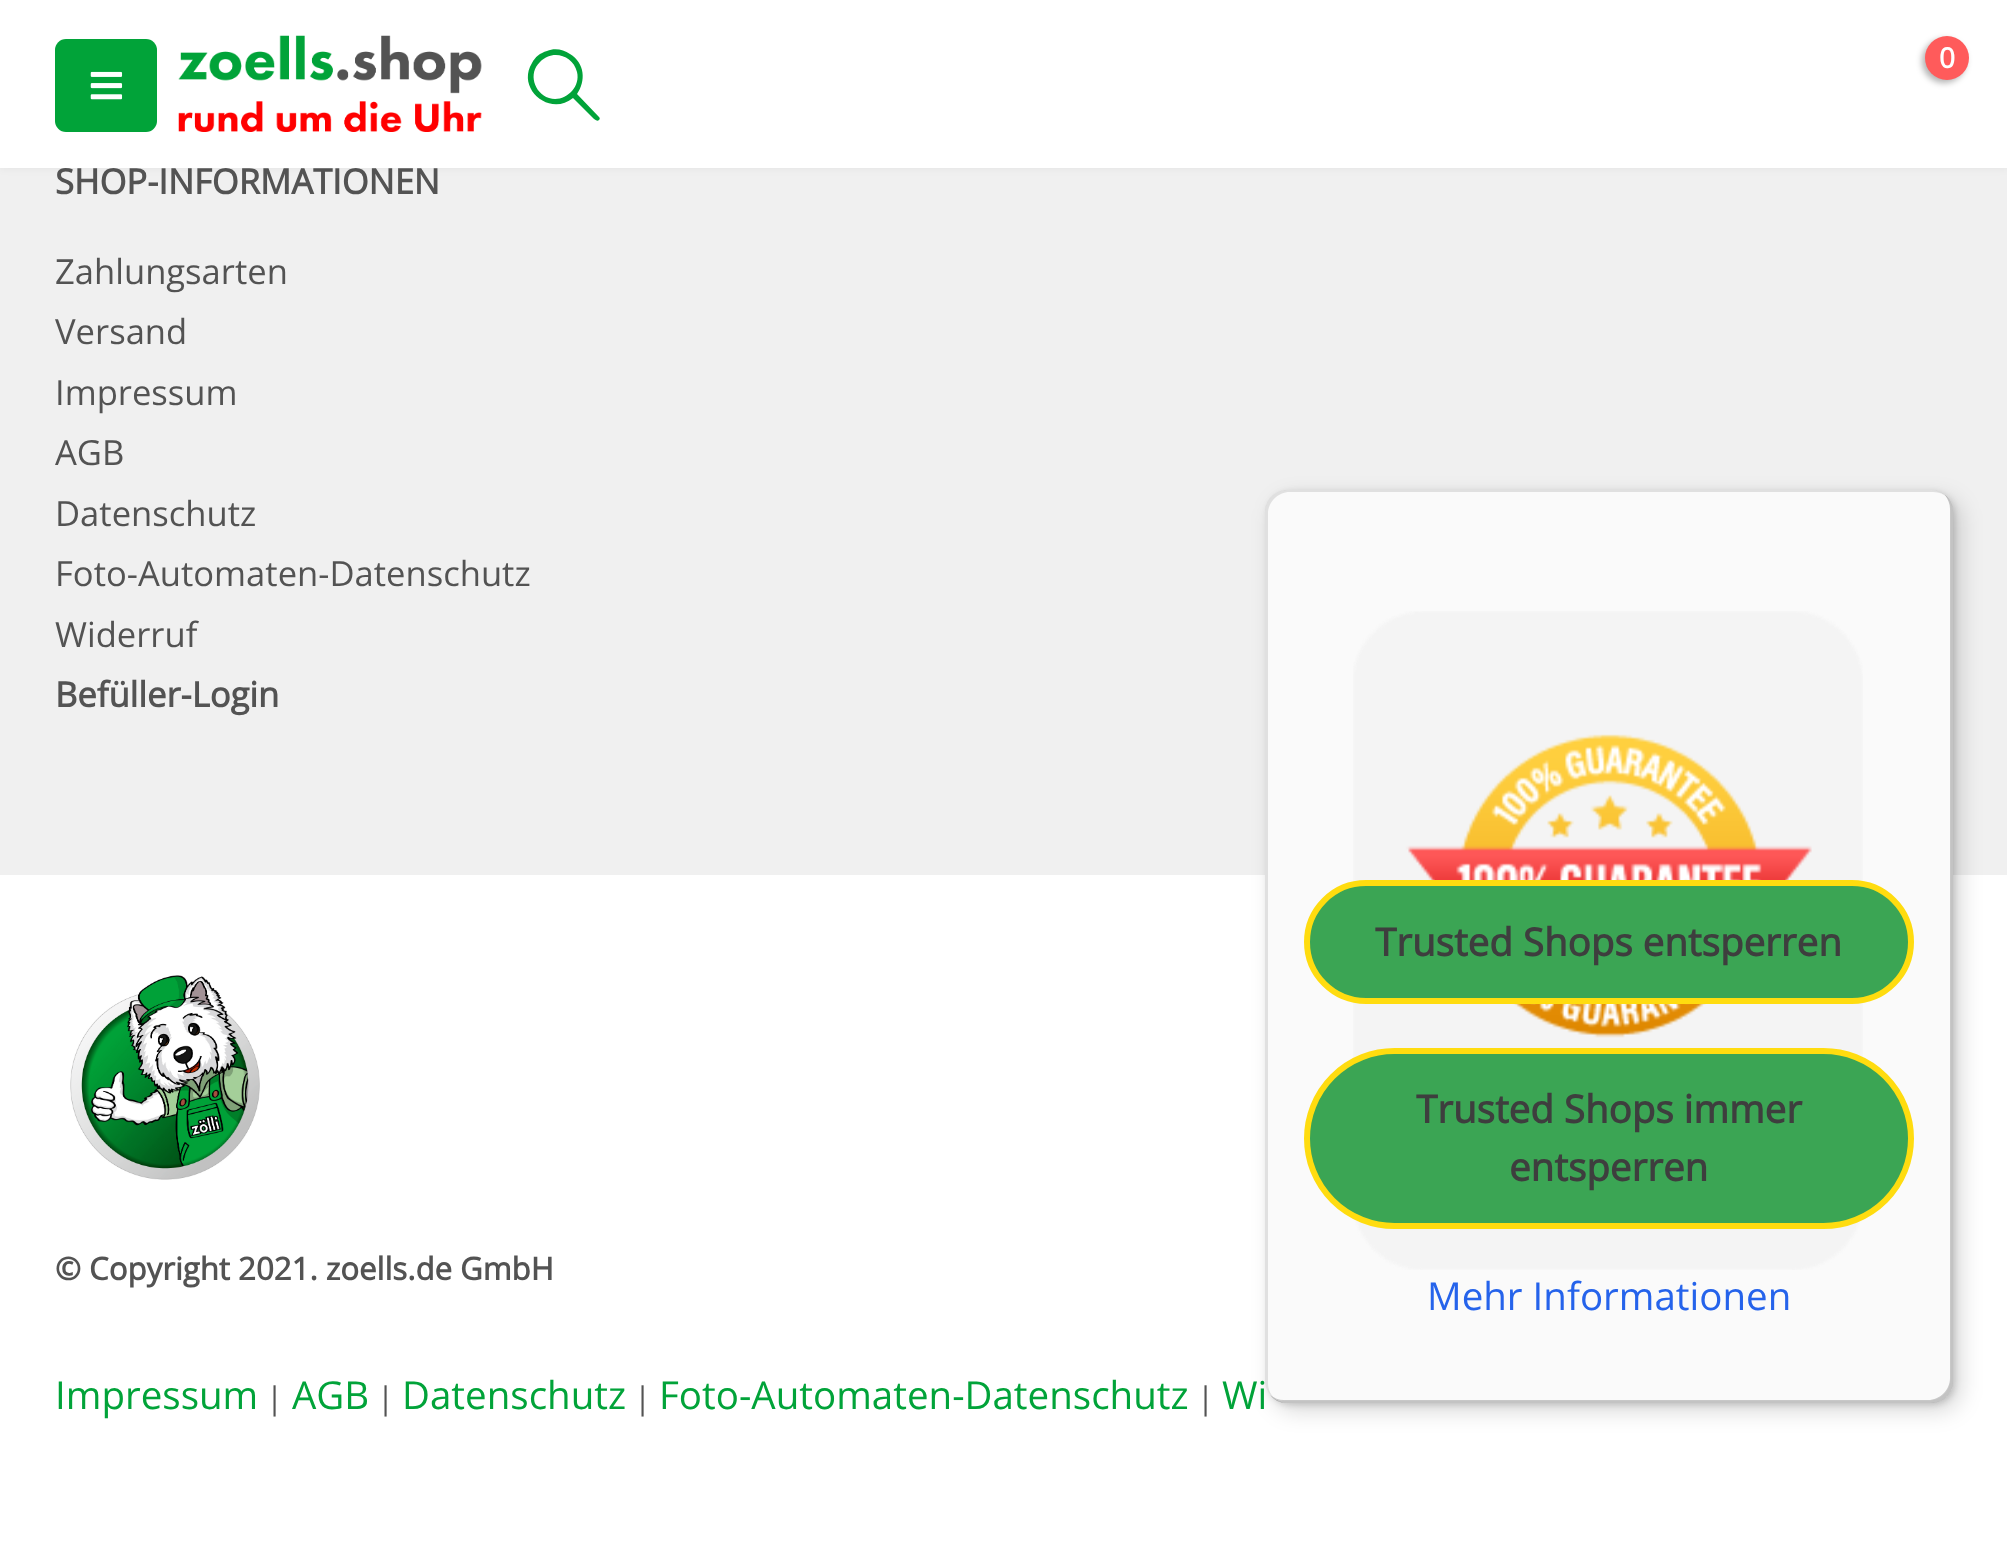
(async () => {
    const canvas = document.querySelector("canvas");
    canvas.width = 2007;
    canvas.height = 1551;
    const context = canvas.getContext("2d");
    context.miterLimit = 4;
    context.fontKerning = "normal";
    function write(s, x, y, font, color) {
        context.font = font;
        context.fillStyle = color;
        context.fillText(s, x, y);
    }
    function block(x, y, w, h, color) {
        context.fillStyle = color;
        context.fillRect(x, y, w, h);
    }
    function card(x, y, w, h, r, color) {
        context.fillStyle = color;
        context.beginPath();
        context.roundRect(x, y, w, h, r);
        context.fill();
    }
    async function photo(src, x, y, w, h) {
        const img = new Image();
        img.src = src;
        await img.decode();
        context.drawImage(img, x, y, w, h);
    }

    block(0, 0, 2007, 1551, "rgb(240, 240, 240)");
    context.fillStyle = "rgba(0, 0, 0, 0.06)";
    context.filter = "blur(4px)";
    context.beginPath();
    context.rect(0, 0, 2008, 168);
    context.fill();
    context.filter = "none";
    block(0, 0, 2007, 168, "rgb(255, 255, 255)");
    card(55, 39, 102, 93, 11, "rgb(1, 163, 57)");
    await photo("media/1.png", 90, 71, 33, 29);
    await photo("media/2.png", 178, 35, 304, 97);
    context.beginPath();
    context.moveTo(599, 117);
    context.bezierCurveTo(600, 118, 600, 119, 599, 120);
    context.bezierCurveTo(597, 122, 594, 119, 593, 118);
    context.lineTo(573, 98);
    context.bezierCurveTo(550, 117, 516, 89, 532, 63);
    context.bezierCurveTo(535, 57, 540, 53, 547, 51);
    context.bezierCurveTo(554, 48, 563, 49, 570, 54);
    context.bezierCurveTo(585, 63, 586, 81, 577, 94);
    context.closePath();
    context.moveTo(549, 98);
    context.bezierCurveTo(564, 103, 581, 88, 577, 72);
    context.bezierCurveTo(573, 55, 552, 49, 540, 62);
    context.bezierCurveTo(528, 73, 534, 93, 549, 98);
    context.closePath();
    context.fill();
    context.fillStyle = "rgba(0, 0, 0, 0.3)";
    context.filter = "blur(3px)";
    context.beginPath();
    context.roundRect(1922, 39, 44, 44, 22);
    context.fill();
    context.filter = "none";
    context.fillStyle = "rgb(255, 91, 91)";
    context.beginPath();
    context.arc(1947, 58, 22, 0, Math.PI * 2);
    context.fill();
    write("0", 1939, 68, "bold 28px Open Sans", "rgb(255, 255, 255)");
    write("SHOP-INFORMATIONEN", 55, 194, "bold 34.6px Open Sans", "rgb(83, 83, 83)");
    write("Zahlungsarten", 55, 284, "34.6px Open Sans", "rgb(83, 83, 83)");
    write("Versand", 55, 344, "34.6px Open Sans", "rgb(83, 83, 83)");
    write("Impressum", 55, 405, "34.6px Open Sans", "rgb(83, 83, 83)");
    write("AGB", 55, 465, "34.6px Open Sans", "rgb(83, 83, 83)");
    write("Datenschutz", 55, 526, "34.6px Open Sans", "rgb(83, 83, 83)");
    write("Foto-Automaten-Datenschutz", 55, 586, "34.6px Open Sans", "rgb(83, 83, 83)");
    write("Widerruf", 55, 647, "34.6px Open Sans", "rgb(83, 83, 83)");
    write("Befüller-Login", 55, 707, "bold 34.6px Open Sans", "rgb(83, 83, 83)");
    block(0, 875, 2007, 676, "rgb(255, 255, 255)");
    await photo("media/3.png", 70, 975, 190, 205);
    write("© Copyright 2021. zoells.de GmbH", 55, 1280, "bold 31.2px Open Sans", "rgb(83, 83, 83)");
    write("Impressum", 55, 1409, "38.5px Open Sans", "rgb(1, 163, 57)");
    write("|", 266, 1409, "31.2px Open Sans", "rgb(83, 83, 83)");
    write("AGB", 292, 1409, "38.5px Open Sans", "rgb(1, 163, 57)");
    write("|", 377, 1409, "31.2px Open Sans", "rgb(83, 83, 83)");
    write("Datenschutz", 402, 1409, "38.5px Open Sans", "rgb(1, 163, 57)");
    write("|", 634, 1409, "31.2px Open Sans", "rgb(83, 83, 83)");
    write("Foto-Automaten-Datenschutz", 659, 1409, "38.5px Open Sans", "rgb(1, 163, 57)");
    write("|", 1197, 1409, "31.2px Open Sans", "rgb(83, 83, 83)");
    write("Wi", 1222, 1409, "38.5px Open Sans", "rgb(1, 163, 57)");
    context.fillStyle = "rgba(0, 0, 0, 0.15)";
    context.filter = "blur(11px)";
    context.beginPath();
    context.roundRect(1273, 498, 688, 913, 22);
    context.fill();
    context.filter = "none";
    context.filter = "blur(3px)";
    context.beginPath();
    context.roundRect(1268, 492, 687, 913, 22);
    context.fill();
    context.filter = "none";
    card(1265, 490, 688, 913, 22, "rgb(250, 250, 250)");
    context.fillStyle = "rgba(0, 0, 0, 0.1)";
    context.beginPath();
    context.moveTo(1290, 492);
    context.lineTo(1933, 492);
    context.bezierCurveTo(1939, 492, 1944, 494, 1948, 498);
    context.bezierCurveTo(1944, 493, 1938, 490, 1931, 490);
    context.lineTo(1287, 490);
    context.bezierCurveTo(1275, 490, 1265, 500, 1265, 512);
    context.lineTo(1265, 1381);
    context.bezierCurveTo(1265, 1389, 1270, 1397, 1277, 1400);
    context.bezierCurveTo(1271, 1396, 1268, 1390, 1268, 1383);
    context.lineTo(1268, 514);
    context.bezierCurveTo(1268, 502, 1278, 492, 1290, 492);
    context.closePath();
    context.fill();
    context.fillStyle = "rgba(0, 0, 0, 0.2)";
    context.beginPath();
    context.moveTo(1270, 1395);
    context.bezierCurveTo(1274, 1400, 1280, 1403, 1287, 1403);
    context.lineTo(1931, 1403);
    context.bezierCurveTo(1943, 1403, 1953, 1393, 1953, 1381);
    context.lineTo(1953, 512);
    context.bezierCurveTo(1953, 505, 1950, 499, 1945, 495);
    context.bezierCurveTo(1948, 499, 1950, 504, 1950, 509);
    context.lineTo(1950, 1378);
    context.bezierCurveTo(1950, 1390, 1940, 1400, 1928, 1400);
    context.lineTo(1284, 1400);
    context.bezierCurveTo(1279, 1400, 1274, 1398, 1270, 1395);
    context.closePath();
    context.fill();
    context.fillStyle = "rgba(50, 50, 50, 0.2)";
    context.beginPath();
    context.moveTo(1270, 1395);
    context.bezierCurveTo(1274, 1400, 1280, 1403, 1287, 1403);
    context.lineTo(1931, 1403);
    context.bezierCurveTo(1943, 1403, 1953, 1393, 1953, 1381);
    context.lineTo(1953, 512);
    context.bezierCurveTo(1953, 505, 1950, 499, 1945, 495);
    context.bezierCurveTo(1949, 499, 1951, 504, 1951, 510);
    context.lineTo(1951, 1379);
    context.bezierCurveTo(1951, 1391, 1941, 1401, 1929, 1401);
    context.lineTo(1285, 1401);
    context.bezierCurveTo(1279, 1401, 1274, 1399, 1270, 1395);
    context.closePath();
    context.fill();
    context.fillStyle = "rgba(255, 255, 255, 0.3)";
    context.beginPath();
    context.moveTo(1267, 1391);
    context.bezierCurveTo(1271, 1398, 1279, 1403, 1287, 1403);
    context.lineTo(1931, 1403);
    context.bezierCurveTo(1943, 1403, 1953, 1393, 1953, 1381);
    context.lineTo(1953, 512);
    context.bezierCurveTo(1953, 505, 1950, 499, 1945, 495);
    context.bezierCurveTo(1949, 499, 1951, 504, 1951, 510);
    context.lineTo(1951, 1379);
    context.bezierCurveTo(1951, 1391, 1941, 1401, 1929, 1401);
    context.lineTo(1286, 1401);
    context.bezierCurveTo(1278, 1401, 1271, 1397, 1267, 1391);
    context.closePath();
    context.fill();
    await photo("media/4.png", 1353, 611, 510, 659);
    context.fillStyle = "rgb(59, 165, 84)";
    context.beginPath();
    context.roundRect(1307, 883, 604, 118, 59);
    context.fill();
    context.strokeStyle = "rgb(255, 220, 15)";
    context.lineWidth = 6;
    context.stroke();
    write("Trusted Shops entsperren", 1375, 956, "bold 38.5px Open Sans", "rgb(62, 62, 62)");
    context.fillStyle = "rgb(59, 165, 84)";
    context.beginPath();
    context.roundRect(1307, 1051, 604, 175, 87.5);
    context.fill();
    context.stroke();
    write("Trusted Shops immer", 1416, 1123, "bold 38.5px Open Sans", "rgb(62, 62, 62)");
    write("entsperren", 1509, 1181, "bold 38.5px Open Sans", "rgb(62, 62, 62)");
    write("Mehr Informationen", 1427, 1310, "38.5px Open Sans", "rgb(37, 99, 235)");
})();
